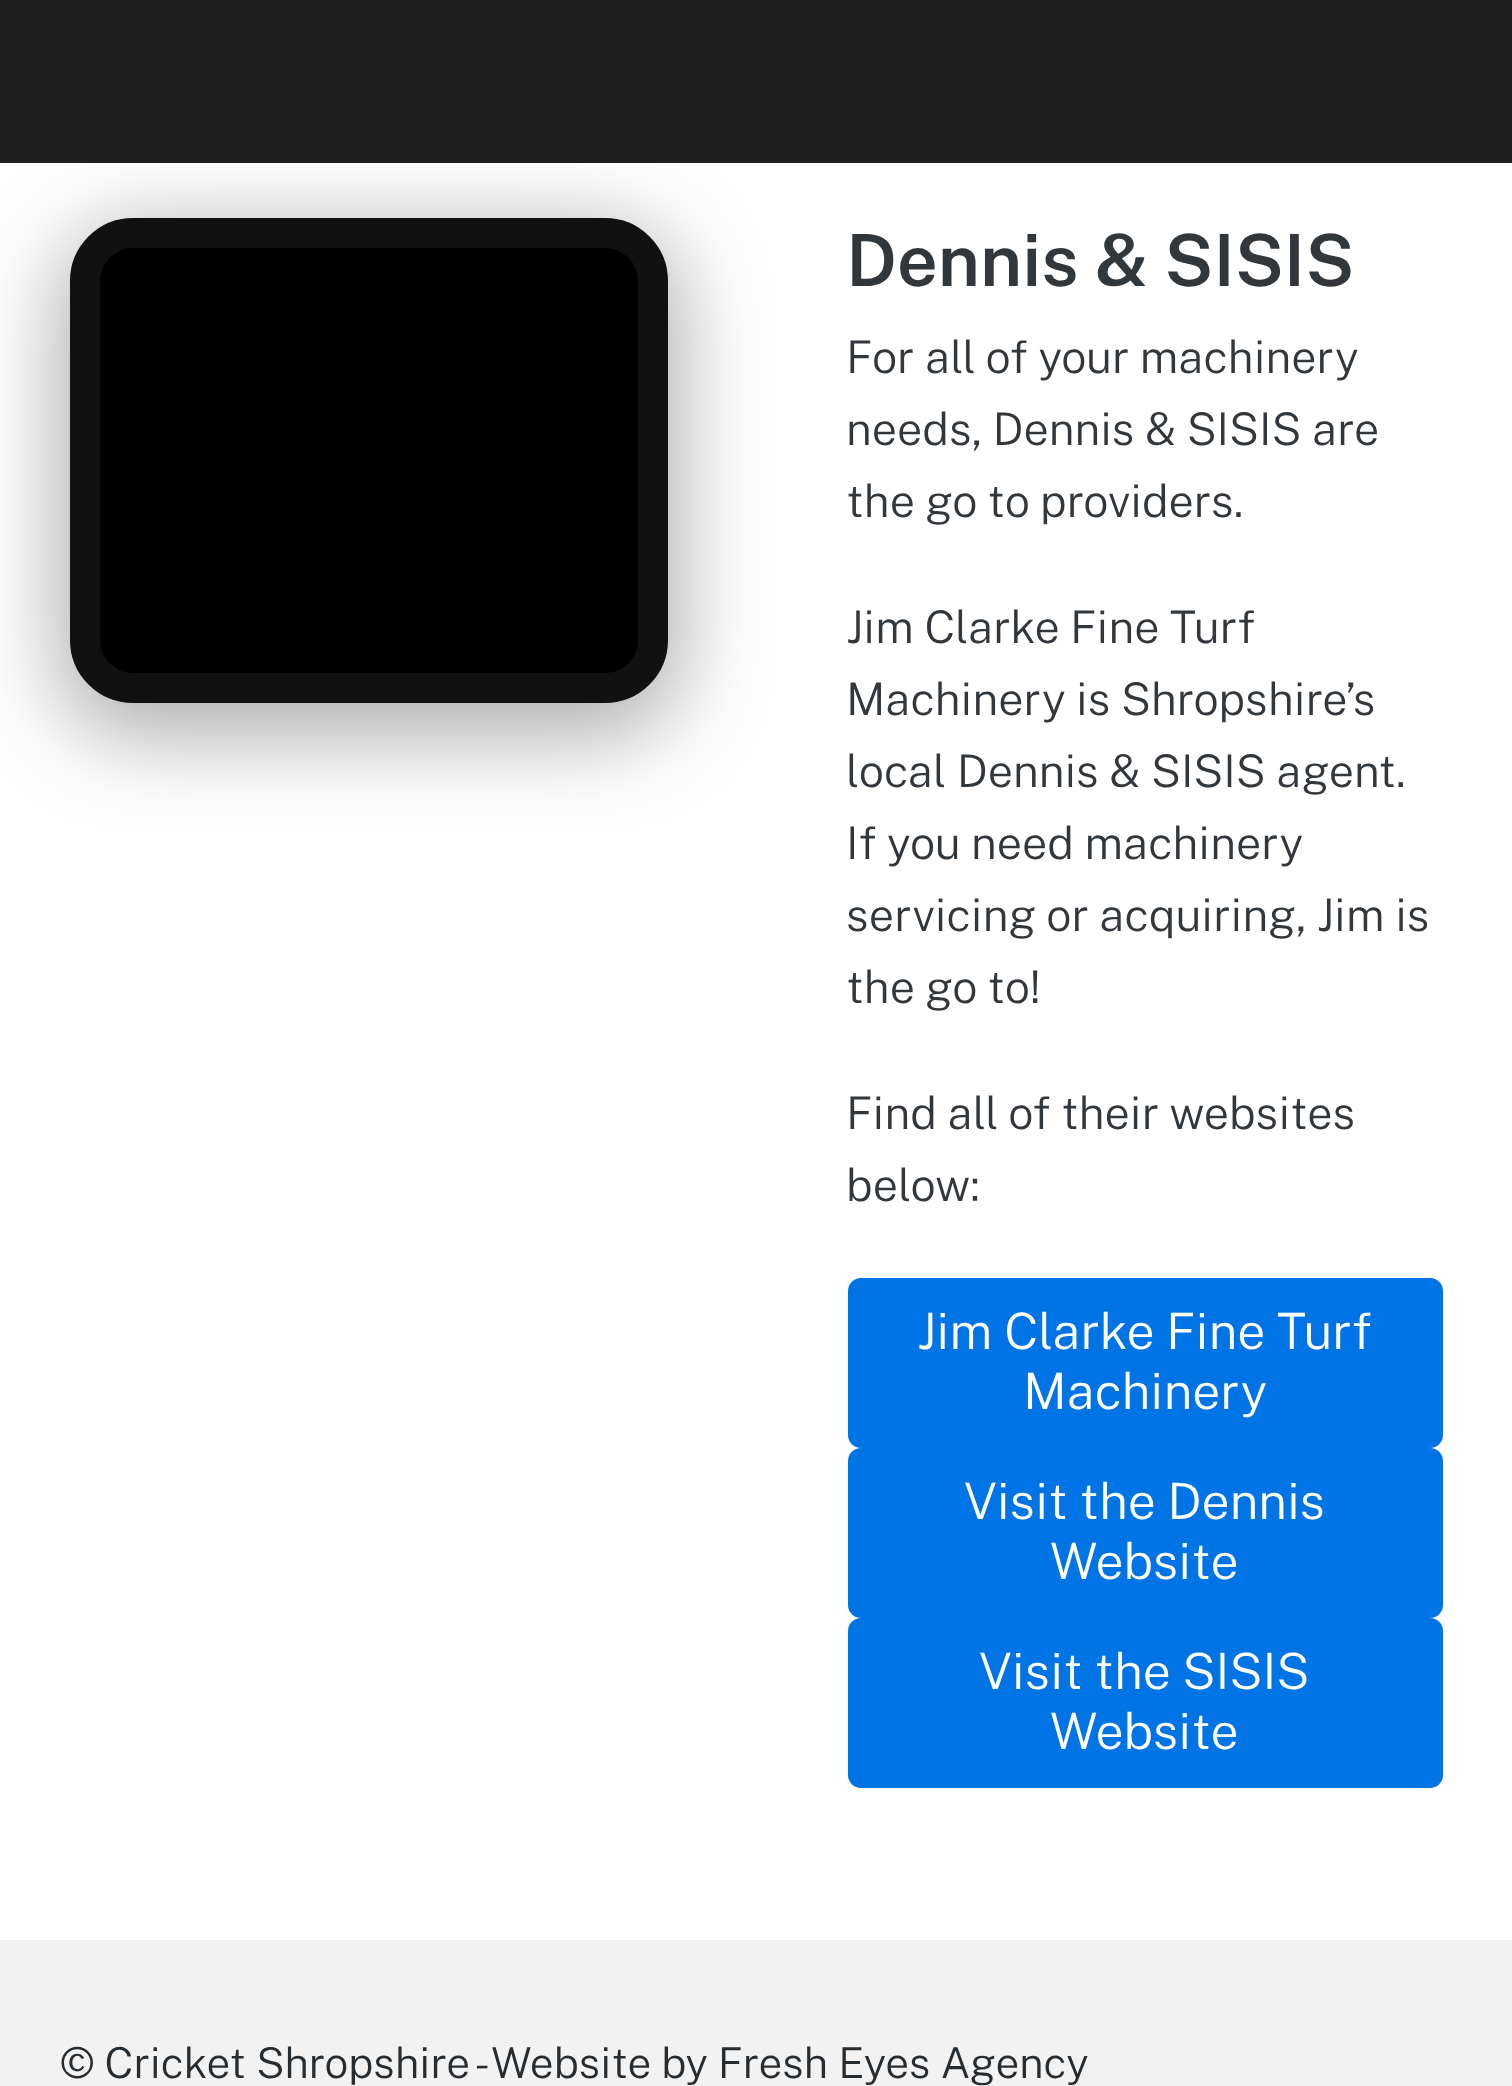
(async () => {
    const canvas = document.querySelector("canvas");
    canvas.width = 1512;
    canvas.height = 2086;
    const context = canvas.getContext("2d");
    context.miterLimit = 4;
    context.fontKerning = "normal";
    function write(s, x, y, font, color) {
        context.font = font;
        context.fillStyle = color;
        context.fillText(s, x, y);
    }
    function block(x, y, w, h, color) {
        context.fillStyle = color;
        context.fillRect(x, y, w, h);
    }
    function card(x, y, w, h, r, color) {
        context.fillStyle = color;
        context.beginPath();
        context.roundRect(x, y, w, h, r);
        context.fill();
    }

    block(0, 0, 1512, 2086, "rgb(255, 255, 255)");
    block(0, 0, 1512, 163, "rgb(31, 31, 31)");
    context.fillStyle = "rgba(0, 0, 0, 0.33)";
    context.filter = "blur(45px)";
    context.beginPath();
    context.roundRect(60, 230, 618, 505, 73);
    context.fill();
    context.filter = "none";
    context.fillStyle = "rgb(0, 0, 0)";
    context.beginPath();
    context.roundRect(85, 233, 568, 455, 48);
    context.fill();
    context.strokeStyle = "rgb(17, 17, 17)";
    context.lineWidth = 30;
    context.stroke();
    write("Dennis & SISIS", 846, 286, "600 72px Public Sans", "rgb(50, 55, 60)");
    write("For all of your machinery", 846, 373, "300 45px Public Sans", "rgb(50, 55, 60)");
    write("needs, Dennis & SISIS are", 846, 445, "300 45px Public Sans", "rgb(50, 55, 60)");
    write("the go to providers.", 846, 517, "300 45px Public Sans", "rgb(50, 55, 60)");
    write("Jim Clarke Fine Turf", 846, 643, "300 45px Public Sans", "rgb(50, 55, 60)");
    write("Machinery is Shropshire’s", 846, 715, "300 45px Public Sans", "rgb(50, 55, 60)");
    write("local Dennis & SISIS agent.", 846, 787, "300 45px Public Sans", "rgb(50, 55, 60)");
    write("If you need machinery", 846, 859, "300 45px Public Sans", "rgb(50, 55, 60)");
    write("servicing or acquiring, Jim is", 846, 931, "300 45px Public Sans", "rgb(50, 55, 60)");
    write("the go to!", 846, 1003, "300 45px Public Sans", "rgb(50, 55, 60)");
    write("Find all of their websites", 846, 1129, "300 45px Public Sans", "rgb(50, 55, 60)");
    write("below:", 846, 1201, "300 45px Public Sans", "rgb(50, 55, 60)");
    card(848, 1278, 595, 170, 13, "rgb(0, 115, 229)");
    write("Jim Clarke Fine Turf", 917, 1349, "300 50px Public Sans", "rgb(255, 255, 255)");
    write("Machinery", 1023, 1409, "300 50px Public Sans", "rgb(255, 255, 255)");
    card(848, 1448, 595, 170, 13, "rgb(0, 115, 229)");
    write("Visit the Dennis", 964, 1519, "300 50px Public Sans", "rgb(255, 255, 255)");
    write("Website", 1050, 1579, "300 50px Public Sans", "rgb(255, 255, 255)");
    card(848, 1618, 595, 170, 13, "rgb(0, 115, 229)");
    write("Visit the SISIS", 979, 1689, "300 50px Public Sans", "rgb(255, 255, 255)");
    write("Website", 1050, 1749, "300 50px Public Sans", "rgb(255, 255, 255)");
    block(0, 1940, 1512, 146, "rgb(242, 242, 242)");
    write("© Cricket Shropshire - Website by Fresh Eyes Agency", 60, 2078, "300 42.5px Public Sans", "rgb(39, 44, 48)");
})();
